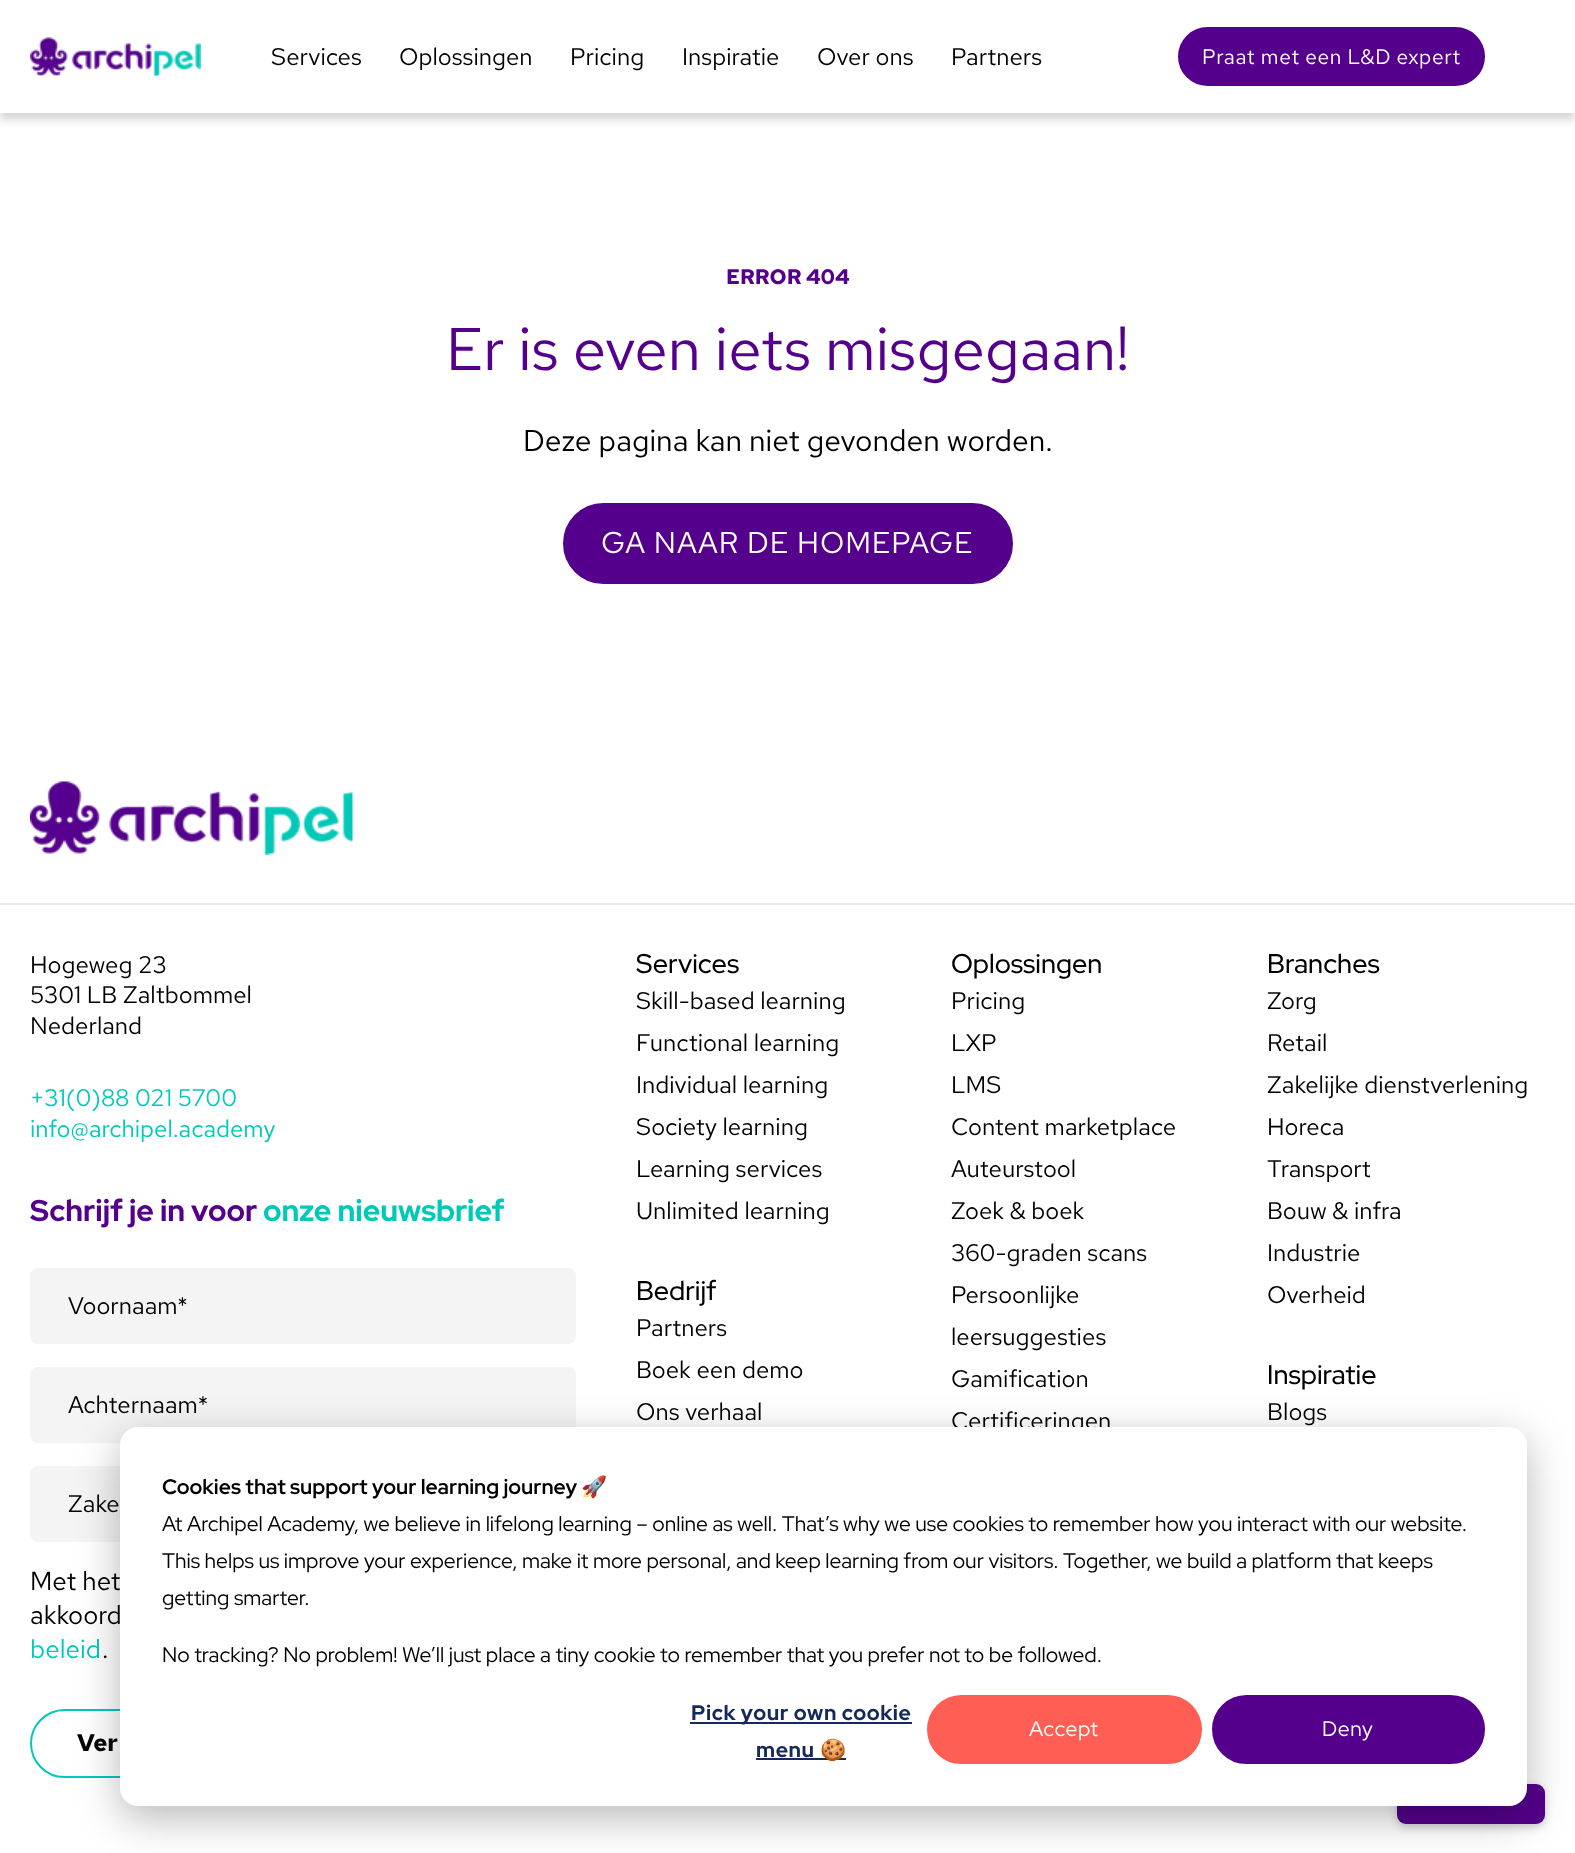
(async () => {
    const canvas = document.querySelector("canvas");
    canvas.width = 1575;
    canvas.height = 1853;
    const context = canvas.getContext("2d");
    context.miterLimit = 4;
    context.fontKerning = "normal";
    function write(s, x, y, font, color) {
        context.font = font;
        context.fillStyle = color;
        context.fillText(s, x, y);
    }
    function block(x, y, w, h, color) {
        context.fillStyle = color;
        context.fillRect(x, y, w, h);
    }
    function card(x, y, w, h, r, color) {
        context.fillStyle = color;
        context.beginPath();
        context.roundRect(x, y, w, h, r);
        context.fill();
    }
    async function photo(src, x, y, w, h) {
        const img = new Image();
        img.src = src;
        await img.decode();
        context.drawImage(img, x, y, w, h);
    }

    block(0, 0, 1575, 1853, "rgb(255, 255, 255)");
    context.fillStyle = "rgba(0, 0, 0, 0.16)";
    context.filter = "blur(4.5px)";
    context.beginPath();
    context.rect(0, 8, 1575, 112);
    context.fill();
    context.filter = "none";
    block(0, 1, 1575, 112, "rgb(255, 255, 255)");
    await photo("media/1.png", 30, 37, 171, 39);
    write("Services", 271, 65, "24px Red Hat Text", "rgb(0, 0, 0)");
    write("Oplossingen", 399, 65, "24px Red Hat Text", "rgb(0, 0, 0)");
    write("Pricing", 570, 65, "24px Red Hat Text", "rgb(0, 0, 0)");
    write("Inspiratie", 682, 65, "24px Red Hat Text", "rgb(0, 0, 0)");
    write("Over ons", 817, 65, "24px Red Hat Text", "rgb(0, 0, 0)");
    write("Partners", 951, 65, "24px Red Hat Text", "rgb(0, 0, 0)");
    context.fillStyle = "rgb(85, 0, 141)";
    context.beginPath();
    context.roundRect(1179, 28, 305, 57, 28.5);
    context.fill();
    context.strokeStyle = "rgb(85, 0, 141)";
    context.lineWidth = 2;
    context.stroke();
    context.letterSpacing = "0.6px";
    write("Praat met een L&D expert", 1202, 64, "21px Red Hat Text", "rgb(255, 255, 255)");
    context.letterSpacing = "0px";
    write("ERROR 404", 726, 284, "bold 21px Red Hat Text", "rgb(85, 0, 141)");
    write("Er is even iets misgegaan!", 446, 370, "60px Red Hat Text", "rgb(85, 0, 141)");
    write("Deze pagina kan niet gevonden worden.", 523, 451, "30px Red Hat Text", "rgb(0, 0, 0)");
    context.fillStyle = "rgb(85, 0, 141)";
    context.beginPath();
    context.roundRect(564, 504, 448, 79, 39.5);
    context.fill();
    context.stroke();
    context.letterSpacing = "0.9px";
    write("GA NAAR DE HOMEPAGE", 601, 553, "30px Red Hat Text", "rgb(255, 255, 255)");
    block(0, 903, 1575, 2, "rgb(234, 234, 234)");
    await photo("media/2.png", 30, 781, 323, 74);
    context.letterSpacing = "0px";
    write("Hogeweg 23", 30, 973, "24px Red Hat Text", "rgb(0, 0, 0)");
    write("5301 LB Zaltbommel", 30, 1003, "24px Red Hat Text", "rgb(0, 0, 0)");
    write("Nederland", 30, 1034, "24px Red Hat Text", "rgb(0, 0, 0)");
    write("+31(0)88 021 5700", 30, 1106, "24px Red Hat Text", "rgb(0, 201, 184)");
    write("info@archipel.academy", 30, 1137, "24px Red Hat Text", "rgb(0, 201, 184)");
    write("Schrijf je in voor", 30, 1221, "800 30px Red Hat Display", "rgb(85, 0, 141)");
    write("onze nieuwsbrief", 263, 1221, "800 30px Red Hat Display", "rgb(0, 201, 184)");
    context.fillStyle = "rgb(244, 244, 244)";
    context.beginPath();
    context.roundRect(31, 1269, 544, 74, 7);
    context.fill();
    context.strokeStyle = "rgb(244, 244, 244)";
    context.stroke();
    write("Voornaam*", 68, 1314, "24px Red Hat Text", "rgb(0, 0, 0)");
    context.fillStyle = "rgb(244, 244, 244)";
    context.beginPath();
    context.roundRect(31, 1368, 544, 74, 7);
    context.fill();
    context.stroke();
    write("Achternaam*", 68, 1413, "24px Red Hat Text", "rgb(0, 0, 0)");
    context.fillStyle = "rgb(244, 244, 244)";
    context.beginPath();
    context.roundRect(31, 1467, 544, 74, 7);
    context.fill();
    context.stroke();
    write("Zake", 68, 1512, "24px Red Hat Text", "rgb(0, 0, 0)");
    write("Met het", 30, 1590, "26px Red Hat Text", "rgb(0, 0, 0)");
    write("akkoord", 30, 1624, "26px Red Hat Text", "rgb(0, 0, 0)");
    write("beleid", 30, 1658, "26px Red Hat Text", "rgb(0, 201, 184)");
    write(".", 102, 1658, "26px Red Hat Text", "rgb(0, 0, 0)");
    context.beginPath();
    context.roundRect(31, 1710, 232, 67, 33.5);
    context.strokeStyle = "rgb(0, 201, 184)";
    context.stroke();
    write("Ver", 77, 1751, "bold 24px Red Hat Text", "rgb(0, 0, 0)");
    write("Services", 636, 973, "500 27px Red Hat Display", "rgb(0, 0, 0)");
    write("Skill-based learning", 636, 1009, "24px Red Hat Text", "rgb(0, 0, 0)");
    write("Functional learning", 636, 1051, "24px Red Hat Text", "rgb(0, 0, 0)");
    write("Individual learning", 636, 1093, "24px Red Hat Text", "rgb(0, 0, 0)");
    write("Society learning", 636, 1135, "24px Red Hat Text", "rgb(0, 0, 0)");
    write("Learning services", 636, 1177, "24px Red Hat Text", "rgb(0, 0, 0)");
    write("Unlimited learning", 636, 1219, "24px Red Hat Text", "rgb(0, 0, 0)");
    write("Bedrijf", 636, 1300, "500 27px Red Hat Display", "rgb(0, 0, 0)");
    write("Partners", 636, 1336, "24px Red Hat Text", "rgb(0, 0, 0)");
    write("Boek een demo", 636, 1378, "24px Red Hat Text", "rgb(0, 0, 0)");
    write("Ons verhaal", 636, 1420, "24px Red Hat Text", "rgb(0, 0, 0)");
    write("Oplossingen", 951, 973, "500 27px Red Hat Display", "rgb(0, 0, 0)");
    write("Pricing", 951, 1009, "24px Red Hat Text", "rgb(0, 0, 0)");
    write("LXP", 951, 1051, "24px Red Hat Text", "rgb(0, 0, 0)");
    write("LMS", 951, 1093, "24px Red Hat Text", "rgb(0, 0, 0)");
    write("Content marketplace", 951, 1135, "24px Red Hat Text", "rgb(0, 0, 0)");
    write("Auteurstool", 951, 1177, "24px Red Hat Text", "rgb(0, 0, 0)");
    write("Zoek & boek", 951, 1219, "24px Red Hat Text", "rgb(0, 0, 0)");
    write("360-graden scans", 951, 1261, "24px Red Hat Text", "rgb(0, 0, 0)");
    write("Persoonlijke", 951, 1303, "24px Red Hat Text", "rgb(0, 0, 0)");
    write("leersuggesties", 951, 1345, "24px Red Hat Text", "rgb(0, 0, 0)");
    write("Gamification", 951, 1387, "24px Red Hat Text", "rgb(0, 0, 0)");
    write("Certificeringen", 951, 1429, "24px Red Hat Text", "rgb(0, 0, 0)");
    write("Branches", 1267, 973, "500 27px Red Hat Display", "rgb(0, 0, 0)");
    write("Zorg", 1267, 1009, "24px Red Hat Text", "rgb(0, 0, 0)");
    write("Retail", 1267, 1051, "24px Red Hat Text", "rgb(0, 0, 0)");
    write("Zakelijke dienstverlening", 1267, 1093, "24px Red Hat Text", "rgb(0, 0, 0)");
    write("Horeca", 1267, 1135, "24px Red Hat Text", "rgb(0, 0, 0)");
    write("Transport", 1267, 1177, "24px Red Hat Text", "rgb(0, 0, 0)");
    write("Bouw & infra", 1267, 1219, "24px Red Hat Text", "rgb(0, 0, 0)");
    write("Industrie", 1267, 1261, "24px Red Hat Text", "rgb(0, 0, 0)");
    write("Overheid", 1267, 1303, "24px Red Hat Text", "rgb(0, 0, 0)");
    write("Inspiratie", 1267, 1384, "500 27px Red Hat Display", "rgb(0, 0, 0)");
    write("Blogs", 1267, 1420, "24px Red Hat Text", "rgb(0, 0, 0)");
    context.fillStyle = "rgba(0, 0, 0, 0.2)";
    context.filter = "blur(4.5px)";
    context.beginPath();
    context.roundRect(1397, 1787, 148, 40, 9);
    context.fill();
    context.filter = "none";
    card(1397, 1784, 148, 40, 9, "rgb(85, 0, 141)");
    context.fillStyle = "rgba(0, 0, 0, 0.28)";
    context.filter = "blur(21px)";
    context.beginPath();
    context.roundRect(120, 1439, 1407, 379, 18);
    context.fill();
    context.filter = "none";
    card(120, 1427, 1407, 379, 18, "rgb(255, 255, 255)");
    write("Cookies that support your learning journey", 162, 1494, "bold 21px Red Hat Display", "rgb(0, 0, 0)");
    write("🚀", 581, 1494, "bold 21px Noto Color Emoji", "rgb(0, 0, 0)");
    write("At Archipel Academy, we believe in lifelong learning – online as well. That’s why we use cookies to remember how you interact with our website.", 162, 1531, "21px Red Hat Display", "rgb(0, 0, 0)");
    write("This helps us improve your experience, make it more personal, and keep learning from our visitors. Together, we build a platform that keeps", 162, 1568, "21px Red Hat Display", "rgb(0, 0, 0)");
    write("getting smarter.", 162, 1605, "21px Red Hat Display", "rgb(0, 0, 0)");
    write("No tracking? No problem! We’ll just place a tiny cookie to remember that you prefer not to be followed.", 162, 1662, "21px Red Hat Display", "rgb(0, 0, 0)");
    block(690, 1722, 222, 2, "rgb(21, 41, 90)");
    context.letterSpacing = "0.6px";
    write("Pick your own cookie", 691, 1720, "800 21px Red Hat Display", "rgb(21, 41, 90)");
    write("menu", 756, 1757, "800 21px Red Hat Display", "rgb(21, 41, 90)");
    block(756, 1758, 90, 2, "rgb(21, 41, 90)");
    write("🍪", 820, 1757, "bold 21px Noto Color Emoji", "rgb(21, 41, 90)");
    context.fillStyle = "rgb(254, 94, 84)";
    context.beginPath();
    context.roundRect(928, 1696, 273, 67, 33.5);
    context.fill();
    context.strokeStyle = "rgb(254, 94, 84)";
    context.stroke();
    write("Accept", 1029, 1736, "21px Red Hat Display", "rgb(255, 255, 255)");
    context.fillStyle = "rgb(85, 0, 141)";
    context.beginPath();
    context.roundRect(1213, 1696, 271, 67, 33.5);
    context.fill();
    context.strokeStyle = "rgb(85, 0, 141)";
    context.stroke();
    write("Deny", 1322, 1736, "21px Red Hat Display", "rgb(255, 255, 255)");
})();
